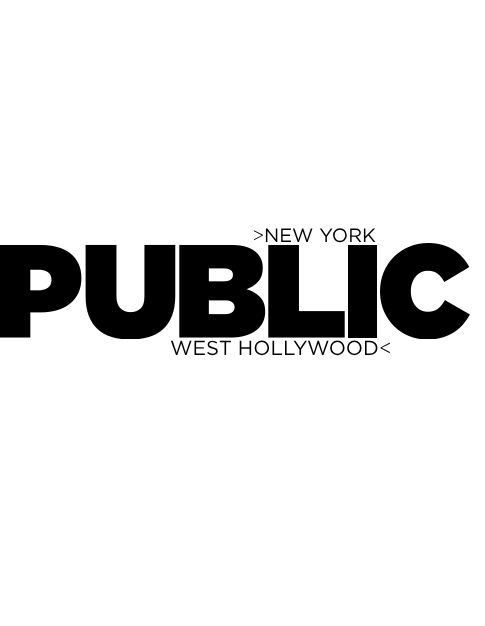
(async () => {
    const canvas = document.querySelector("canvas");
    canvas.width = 485;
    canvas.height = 626;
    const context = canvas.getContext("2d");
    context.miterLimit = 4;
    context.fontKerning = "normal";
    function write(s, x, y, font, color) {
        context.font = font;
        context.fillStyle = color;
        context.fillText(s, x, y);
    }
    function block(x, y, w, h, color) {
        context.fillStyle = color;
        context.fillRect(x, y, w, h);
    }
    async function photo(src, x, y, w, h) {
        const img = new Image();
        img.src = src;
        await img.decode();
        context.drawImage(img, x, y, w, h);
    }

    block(0, 0, 485, 626, "rgb(255, 255, 255)");
    write(">", 252, 242, "300 19.25px Gotham", "rgb(0, 0, 0)");
    write("NEW YORK", 264, 242, "19.25px Gotham", "rgb(0, 0, 0)");
    await photo("media/1.png", 0, 243, 470, 96);
    write("WEST HOLLYWOOD", 170, 355, "20.25px Gotham", "rgb(0, 0, 0)");
    write("<", 379, 355, "300 20.25px Gotham", "rgb(0, 0, 0)");
})();
